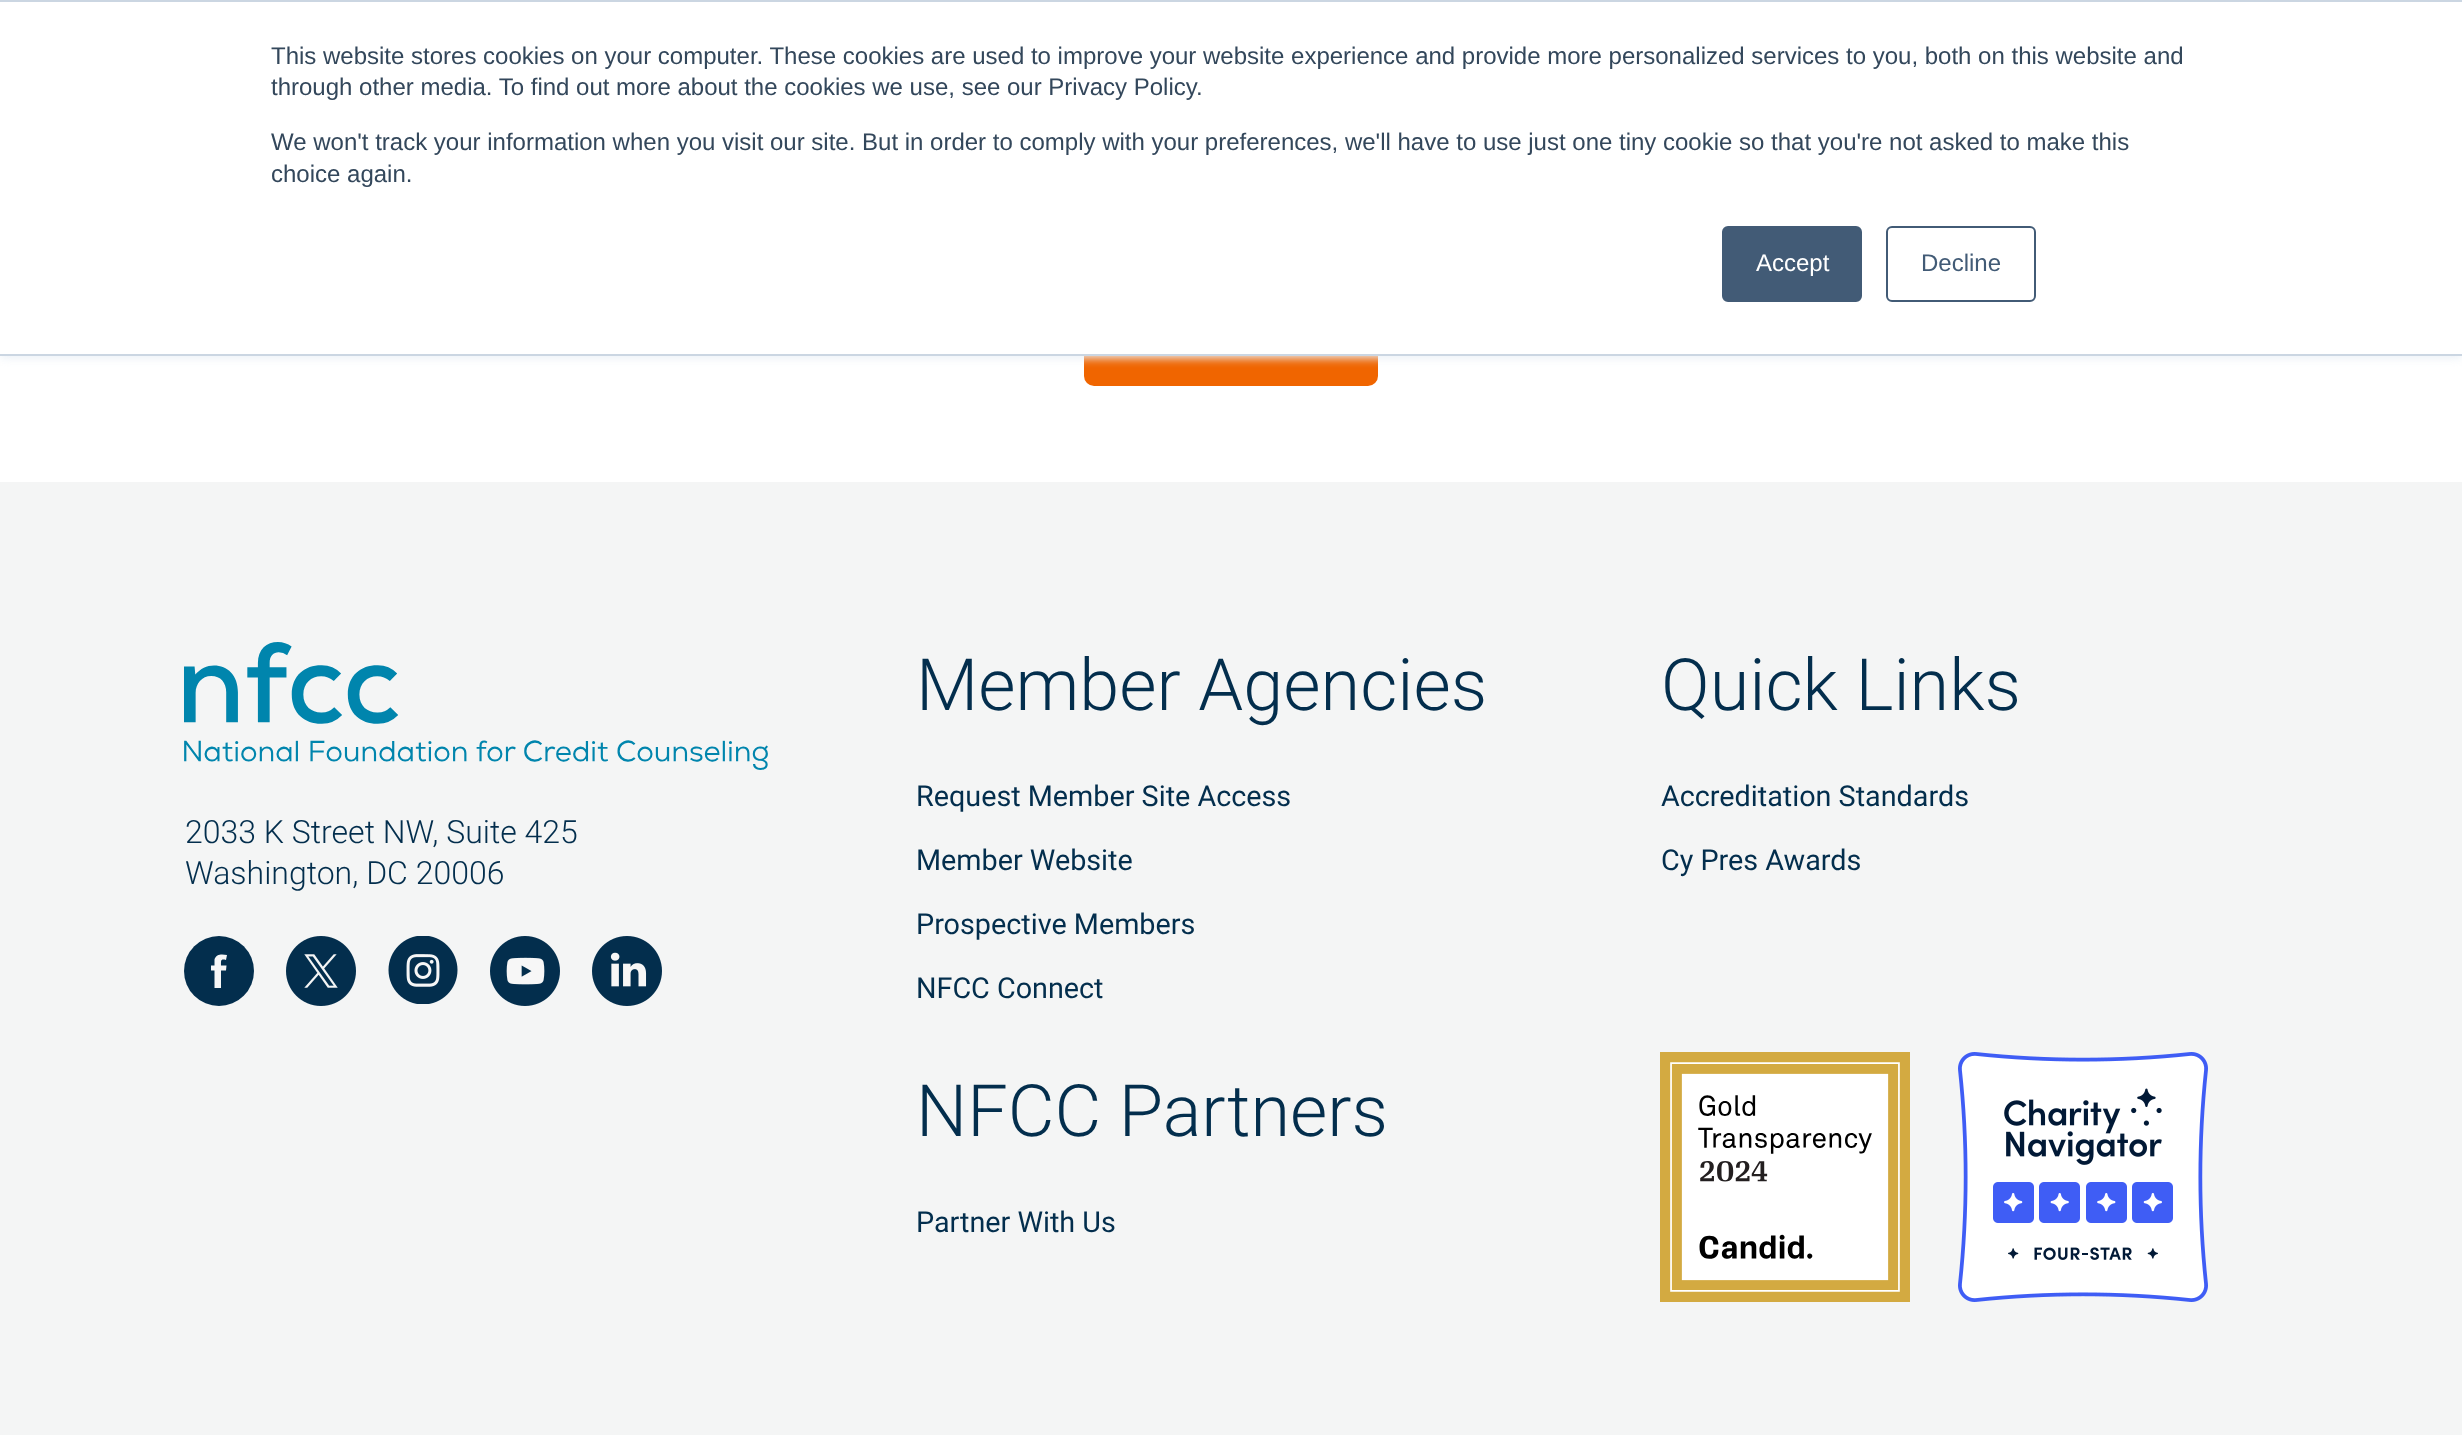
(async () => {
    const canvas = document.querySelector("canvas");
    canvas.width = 2462;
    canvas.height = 1435;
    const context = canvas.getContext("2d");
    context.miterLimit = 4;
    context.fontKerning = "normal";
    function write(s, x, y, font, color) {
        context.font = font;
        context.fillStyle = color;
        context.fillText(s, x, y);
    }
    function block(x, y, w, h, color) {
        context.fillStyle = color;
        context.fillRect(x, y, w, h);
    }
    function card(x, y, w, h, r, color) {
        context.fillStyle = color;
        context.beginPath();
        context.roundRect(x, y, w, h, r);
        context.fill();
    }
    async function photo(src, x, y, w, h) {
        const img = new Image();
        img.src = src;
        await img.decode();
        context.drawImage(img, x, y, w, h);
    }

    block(0, 0, 2462, 1435, "rgb(255, 255, 255)");
    card(1084, 312, 294, 74, 10, "rgb(240, 101, 0)");
    context.fillStyle = "rgb(234, 240, 246)";
    context.filter = "blur(5px)";
    context.beginPath();
    context.rect(0, 2, 2462, 356);
    context.fill();
    context.filter = "none";
    block(0, 2, 2462, 352, "rgb(255, 255, 255)");
    block(0, 0, 2462, 2, "rgb(203, 214, 226)");
    block(0, 354, 2462, 2, "rgb(203, 214, 226)");
    write("This website stores cookies on your computer. These cookies are used to improve your website experience and provide more personalized services to you, both on this website and", 271, 64, "24px Liberation Sans", "rgb(51, 71, 91)");
    write("through other media. To find out more about the cookies we use, see our Privacy Policy.", 271, 95, "24px Liberation Sans", "rgb(51, 71, 91)");
    write("We won't track your information when you visit our site. But in order to comply with your preferences, we'll have to use just one tiny cookie so that you're not asked to make this", 271, 150, "24px Liberation Sans", "rgb(51, 71, 91)");
    write("choice again.", 271, 182, "24px Liberation Sans", "rgb(51, 71, 91)");
    context.fillStyle = "rgb(66, 91, 118)";
    context.beginPath();
    context.roundRect(1723, 227, 138, 74, 5);
    context.fill();
    context.strokeStyle = "rgb(66, 91, 118)";
    context.lineWidth = 2;
    context.stroke();
    write("Accept", 1756, 271, "24px Liberation Sans", "rgb(255, 255, 255)");
    context.beginPath();
    context.roundRect(1887, 227, 148, 74, 5);
    context.stroke();
    write("Decline", 1921, 271, "24px Liberation Sans", "rgb(66, 91, 118)");
    block(0, 482, 2462, 953, "rgb(244, 245, 245)");
    await photo("media/1.png", 184, 642, 584, 128);
    write("2033 K Street NW, Suite 425", 185, 843, "300 32px Roboto", "rgb(3, 46, 77)");
    write("Washington, DC 20006", 185, 884, "300 32px Roboto", "rgb(3, 46, 77)");
    context.beginPath();
    context.arc(219, 971, 35, 0, Math.PI * 2);
    context.fill();
    context.fillStyle = "rgb(247, 247, 247)";
    context.beginPath();
    context.moveTo(211, 965.5);
    context.lineTo(214.5, 965.5);
    context.lineTo(214.5, 959.5);
    context.bezierCurveTo(216, 953.5, 222.5, 954, 227, 955);
    context.lineTo(226, 960);
    context.bezierCurveTo(220.5, 958.5, 221, 960.5, 221, 965.5);
    context.lineTo(226.5, 965.5);
    context.lineTo(226, 970.5);
    context.lineTo(221, 970.5);
    context.lineTo(221, 988);
    context.lineTo(214.5, 988);
    context.lineTo(214.5, 970.5);
    context.lineTo(211, 970.5);
    context.closePath();
    context.fill();
    await photo("media/2.png", 286, 936, 70, 70);
    await photo("media/3.png", 388, 936, 70, 68);
    await photo("media/4.png", 490, 936, 70, 70);
    await photo("media/5.png", 592, 936, 70, 70);
    write("Member Agencies", 916, 710, "300 72px Roboto", "rgb(3, 46, 77)");
    write("Request Member Site Access", 916, 806, "28.75px Roboto", "rgb(3, 46, 77)");
    write("Member Website", 916, 870, "28.75px Roboto", "rgb(3, 46, 77)");
    write("Prospective Members", 916, 934, "28.75px Roboto", "rgb(3, 46, 77)");
    write("NFCC Connect", 916, 998, "28.75px Roboto", "rgb(3, 46, 77)");
    write("NFCC Partners", 916, 1136, "300 72px Roboto", "rgb(3, 46, 77)");
    write("Partner With Us", 916, 1232, "28.75px Roboto", "rgb(3, 46, 77)");
    write("Quick Links", 1661, 710, "300 72px Roboto", "rgb(3, 46, 77)");
    write("Accreditation Standards", 1661, 806, "28.75px Roboto", "rgb(3, 46, 77)");
    write("Cy Pres Awards", 1661, 870, "28.75px Roboto", "rgb(3, 46, 77)");
    await photo("media/6.png", 1660, 1052, 250, 250);
    await photo("media/7.png", 1958, 1052, 250, 250);
})();
